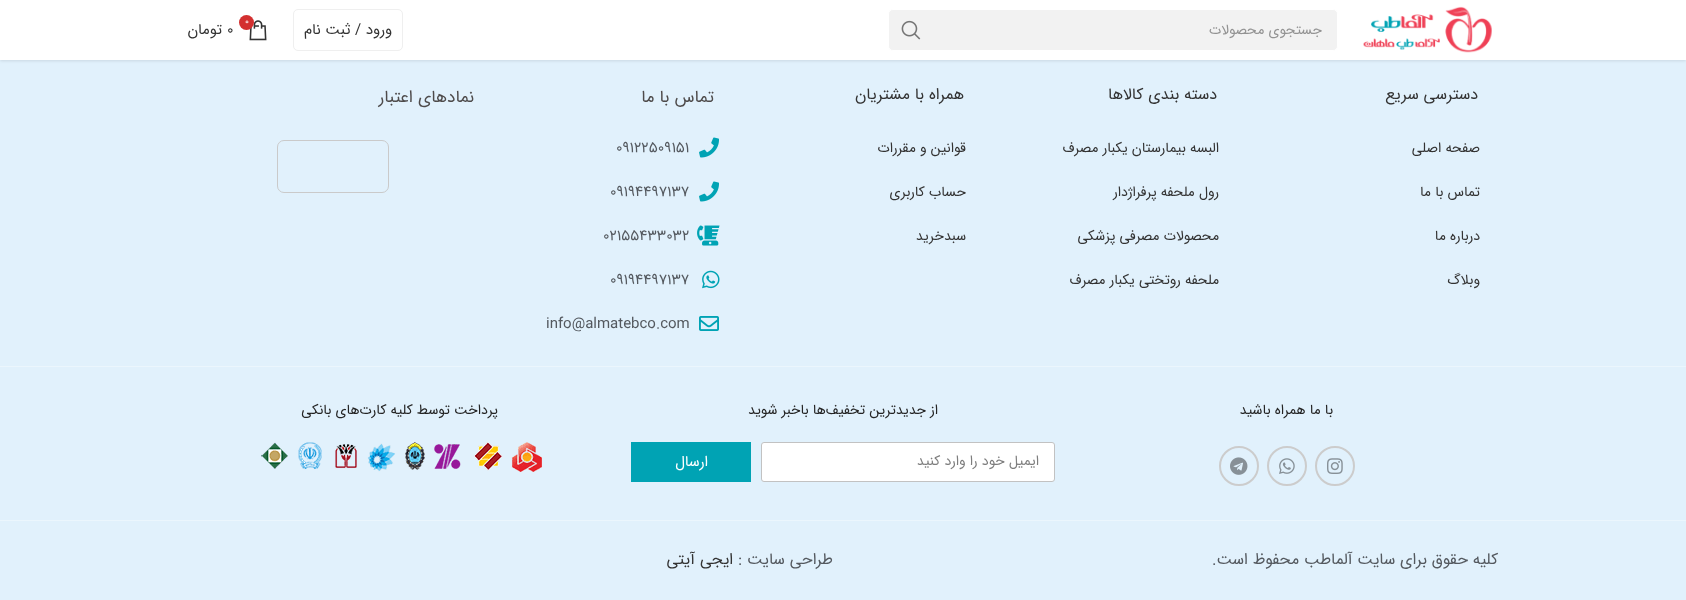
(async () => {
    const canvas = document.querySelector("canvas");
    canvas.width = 1686;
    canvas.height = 600;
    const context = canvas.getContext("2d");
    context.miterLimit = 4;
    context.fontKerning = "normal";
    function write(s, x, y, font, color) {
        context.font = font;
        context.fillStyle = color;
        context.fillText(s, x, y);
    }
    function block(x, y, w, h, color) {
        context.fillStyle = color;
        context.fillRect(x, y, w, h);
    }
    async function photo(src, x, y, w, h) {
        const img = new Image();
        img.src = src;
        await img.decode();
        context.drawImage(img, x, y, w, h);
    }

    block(0, 0, 1686, 600, "rgb(225, 241, 252)");
    context.fillStyle = "rgba(0, 0, 0, 0.1)";
    context.filter = "blur(1.5px)";
    context.beginPath();
    context.rect(0, 1, 1686, 60);
    context.fill();
    context.filter = "none";
    block(0, 0, 1686, 60, "rgb(255, 255, 255)");
    await photo("media/1.png", 1363, 6, 129, 47);
    context.fillStyle = "rgb(242, 242, 242)";
    context.beginPath();
    context.roundRect(888.5, 9.5, 449, 41, 4.5);
    context.fill();
    context.strokeStyle = "rgb(255, 255, 255)";
    context.stroke();
    context.direction = "rtl";
    write("جستجوی محصولات", 1322, 34, "14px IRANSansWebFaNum", "rgb(147, 147, 147)");
    await photo("media/2.png", 901, 20, 20, 20);
    context.beginPath();
    context.roundRect(293.5, 9.5, 109, 41, 4.5);
    context.strokeStyle = "rgb(239, 239, 239)";
    context.stroke();
    write("ورود / ثبت نام", 392, 34, "15px IRANSansWebFaNum", "rgb(51, 51, 51)");
    await photo("media/3.png", 249, 20, 18, 21);
    context.fillStyle = "rgb(211, 48, 48)";
    context.beginPath();
    context.arc(246.5, 22.5, 7.5, 0, Math.PI * 2);
    context.fill();
    context.direction = "ltr";
    write("0", 245, 24, "9px IRANSansWebFaNum", "rgb(255, 255, 255)");
    write("0", 227, 34, "15px IRANSansWebFaNum", "rgb(51, 51, 51)");
    context.direction = "rtl";
    write("تومان", 222, 34, "15px IRANSansWebFaNum", "rgb(51, 51, 51)");
    write("دسترسی سریع", 1478, 99, "16px IRANSansWebFaNum", "rgb(51, 51, 51)");
    write("صفحه اصلی", 1480, 152, "14px IRANSansWebFaNum", "rgb(51, 51, 51)");
    write("تماس با ما", 1480, 196, "14px IRANSansWebFaNum", "rgb(51, 51, 51)");
    write("درباره ما", 1480, 240, "14px IRANSansWebFaNum", "rgb(51, 51, 51)");
    write("وبلاگ", 1480, 284, "14px IRANSansWebFaNum", "rgb(51, 51, 51)");
    write("دسته بندی کالاها", 1217, 99, "16px IRANSansWebFaNum", "rgb(51, 51, 51)");
    write("البسه بیمارستان یکبار مصرف", 1219, 152, "14px IRANSansWebFaNum", "rgb(51, 51, 51)");
    write("رول ملحفه پرفراژدار", 1219, 196, "14px IRANSansWebFaNum", "rgb(51, 51, 51)");
    write("محصولات مصرفی پزشکی", 1219, 240, "14px IRANSansWebFaNum", "rgb(51, 51, 51)");
    write("ملحفه روتختی یکبار مصرف", 1219, 284, "14px IRANSansWebFaNum", "rgb(51, 51, 51)");
    write("همراه با مشتریان", 964, 99, "16px IRANSansWebFaNum", "rgb(51, 51, 51)");
    write("قوانین و مقررات", 966, 152, "14px IRANSansWebFaNum", "rgb(51, 51, 51)");
    write("حساب کاربری", 966, 196, "14px IRANSansWebFaNum", "rgb(51, 51, 51)");
    write("سبدخرید", 966, 240, "14px IRANSansWebFaNum", "rgb(51, 51, 51)");
    write("تماس با ما", 714, 102, "17px IRANSansWebFaNum", "rgb(78, 75, 75)");
    await photo("media/4.png", 699, 137, 20, 21);
    context.direction = "ltr";
    write("09122509151", 616, 152, "15px IRANSansWebFaNum", "rgb(84, 89, 95)");
    await photo("media/4.png", 699, 181, 20, 21);
    write("09194497137", 610, 196, "15px IRANSansWebFaNum", "rgb(84, 89, 95)");
    await photo("media/5.png", 697, 225, 23, 21);
    write("02155433032", 603, 240, "15px IRANSansWebFaNum", "rgb(84, 89, 95)");
    await photo("media/6.png", 702, 270, 18, 19);
    write("09194497137", 610, 284, "15px IRANSansWebFaNum", "rgb(84, 89, 95)");
    await photo("media/7.png", 699, 316, 20, 15);
    write("info@almatebco.com", 546, 328, "15px IRANSansWebFaNum", "rgb(84, 89, 95)");
    context.direction = "rtl";
    write("نمادهای اعتبار", 474, 102, "17px IRANSansWebFaNum", "rgb(78, 75, 75)");
    context.beginPath();
    context.roundRect(277.5, 140.5, 111, 52, 6.5);
    context.strokeStyle = "rgb(202, 202, 202)";
    context.stroke();
    block(0, 366, 1686, 1, "rgb(235, 246, 253)");
    write("با ما همراه باشید", 1333, 414, "14px IRANSansWebFaNum", "rgb(36, 36, 36)");
    context.beginPath();
    context.arc(1335, 466, 19, 0, Math.PI * 2);
    context.strokeStyle = "rgb(204, 204, 204)";
    context.lineWidth = 2;
    context.stroke();
    await photo("media/8.png", 1327, 458, 16, 16);
    context.beginPath();
    context.arc(1287, 466, 19, 0, Math.PI * 2);
    context.stroke();
    await photo("media/9.png", 1279, 458, 16, 16);
    context.beginPath();
    context.arc(1239, 466, 19, 0, Math.PI * 2);
    context.stroke();
    await photo("media/10.png", 1230, 457, 18, 18);
    write("از جدیدترین تخفیف‌ها باخبر شوید", 938, 414, "14px IRANSansWebFaNum", "rgb(36, 36, 36)");
    context.fillStyle = "rgb(255, 255, 255)";
    context.beginPath();
    context.roundRect(761.5, 442.5, 293, 39, 2.5);
    context.fill();
    context.strokeStyle = "rgb(194, 194, 194)";
    context.lineWidth = 1;
    context.stroke();
    write("ایمیل خود را وارد کنید", 1039, 465, "14px IRANSansWebFaNum", "rgb(126, 126, 126)");
    block(631, 442, 120, 40, "rgb(0, 163, 180)");
    write("ارسال", 708, 466, "15px IRANSansWebFaNum", "rgb(255, 255, 255)");
    write("پرداخت توسط کلیه کارت‌های بانکی", 498, 414, "14px IRANSansWebFaNum", "rgb(36, 36, 36)");
    await photo("media/11.png", 261, 442, 281, 30);
    block(0, 520, 1686, 1, "rgb(235, 246, 253)");
    write("کلیه حقوق برای سایت آلماطب محفوظ است.", 1498, 564, "16px IRANSansWebFaNum", "rgb(84, 89, 95)");
    write("طراحی سایت :", 833, 564, "16px IRANSansWebFaNum", "rgb(84, 89, 95)");
    write("ایجی آیتی", 733, 564, "16px IRANSansWebFaNum", "rgb(51, 51, 51)");
})();
